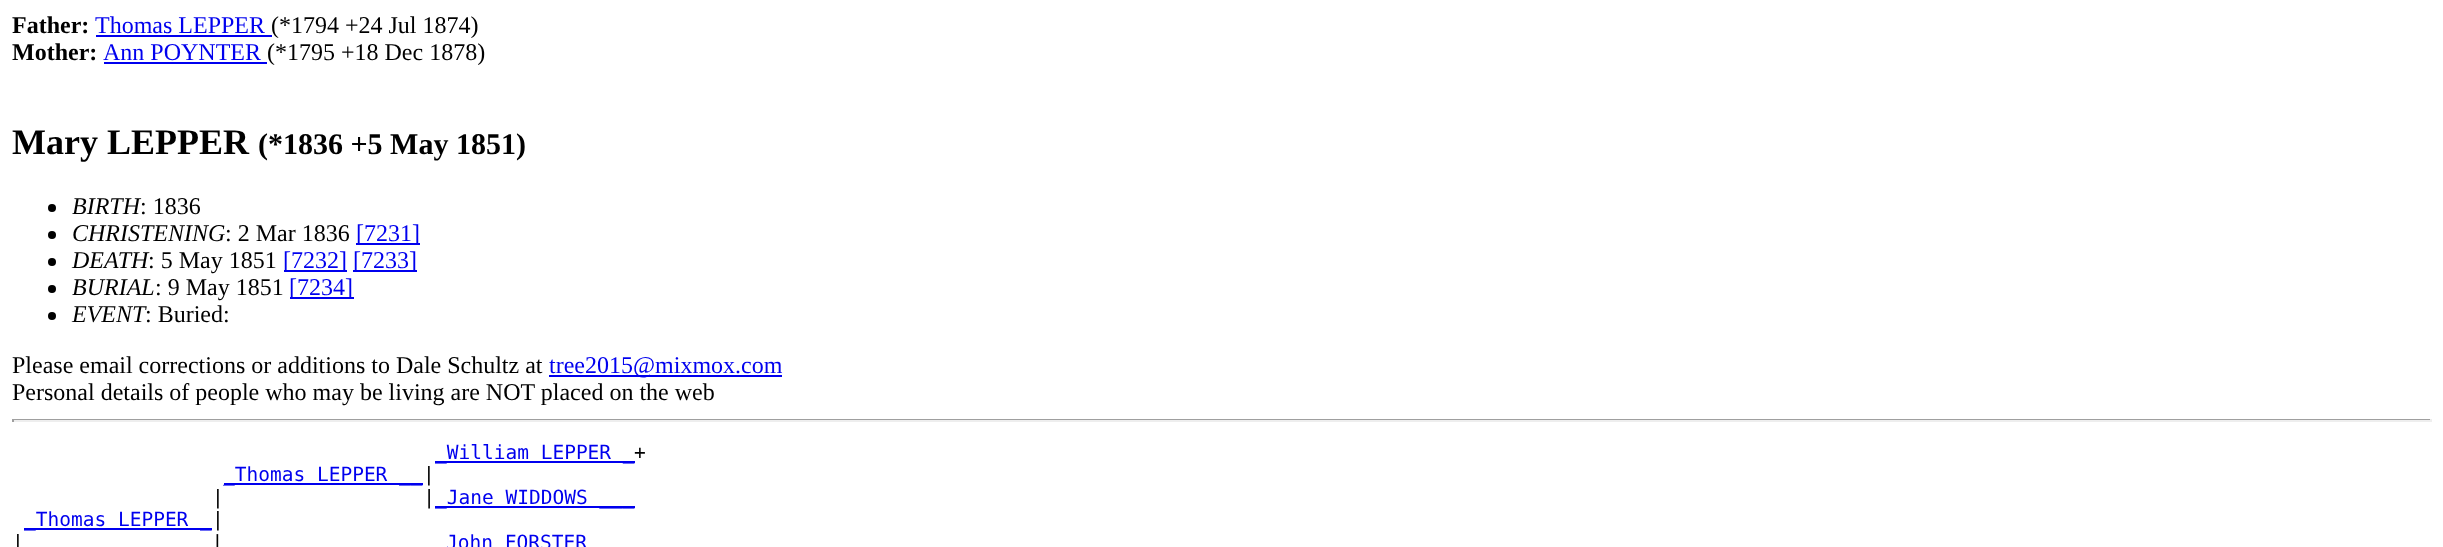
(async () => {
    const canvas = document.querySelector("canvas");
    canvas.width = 2443;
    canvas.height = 547;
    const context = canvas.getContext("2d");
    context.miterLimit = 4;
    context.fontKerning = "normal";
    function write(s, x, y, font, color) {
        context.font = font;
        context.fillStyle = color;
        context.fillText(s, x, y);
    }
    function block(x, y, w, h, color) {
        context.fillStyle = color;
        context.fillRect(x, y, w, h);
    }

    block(0, 0, 2443, 547, "rgb(255, 255, 255)");
    write("Father:", 12, 33, "bold 24px Liberation Serif", "rgb(0, 0, 0)");
    write("Thomas LEPPER", 95, 33, "24px Liberation Serif", "rgb(0, 0, 238)");
    write("(*1794 +24 Jul 1874)", 271, 33, "24px Liberation Serif", "rgb(0, 0, 0)");
    block(96, 35, 176, 2, "rgb(0, 0, 238)");
    write("Mother:", 12, 60, "bold 24px Liberation Serif", "rgb(0, 0, 0)");
    write("Ann POYNTER", 103, 60, "24px Liberation Serif", "rgb(0, 0, 238)");
    write("(*1795 +18 Dec 1878)", 267, 60, "24px Liberation Serif", "rgb(0, 0, 0)");
    block(104, 62, 163, 2, "rgb(0, 0, 238)");
    write("Mary LEPPER", 12, 154, "bold 36px Liberation Serif", "rgb(0, 0, 0)");
    write("(*1836 +5 May 1851)", 258, 154, "bold 30px Liberation Serif", "rgb(0, 0, 0)");
    context.beginPath();
    context.arc(52, 208, 4, 0, Math.PI * 2);
    context.fill();
    write("BIRTH", 72, 214, "italic 24px Liberation Serif", "rgb(0, 0, 0)");
    write(": 1836", 140, 214, "24px Liberation Serif", "rgb(0, 0, 0)");
    context.beginPath();
    context.arc(52, 235, 4, 0, Math.PI * 2);
    context.fill();
    write("CHRISTENING", 72, 241, "italic 24px Liberation Serif", "rgb(0, 0, 0)");
    write(": 2 Mar 1836", 225, 241, "24px Liberation Serif", "rgb(0, 0, 0)");
    block(356, 243, 64, 2, "rgb(0, 0, 238)");
    write("[7231]", 356, 241, "24px Liberation Serif", "rgb(0, 0, 238)");
    context.fillStyle = "rgb(0, 0, 0)";
    context.beginPath();
    context.arc(52, 262, 4, 0, Math.PI * 2);
    context.fill();
    write("DEATH", 72, 268, "italic 24px Liberation Serif", "rgb(0, 0, 0)");
    write(": 5 May 1851", 148, 268, "24px Liberation Serif", "rgb(0, 0, 0)");
    block(284, 270, 63, 2, "rgb(0, 0, 238)");
    write("[7232]", 283, 268, "24px Liberation Serif", "rgb(0, 0, 238)");
    block(353, 270, 64, 2, "rgb(0, 0, 238)");
    write("[7233]", 353, 268, "24px Liberation Serif", "rgb(0, 0, 238)");
    context.fillStyle = "rgb(0, 0, 0)";
    context.beginPath();
    context.arc(52, 289, 4, 0, Math.PI * 2);
    context.fill();
    write("BURIAL", 72, 295, "italic 24px Liberation Serif", "rgb(0, 0, 0)");
    write(": 9 May 1851", 155, 295, "24px Liberation Serif", "rgb(0, 0, 0)");
    block(290, 297, 64, 2, "rgb(0, 0, 238)");
    write("[7234]", 289, 295, "24px Liberation Serif", "rgb(0, 0, 238)");
    context.fillStyle = "rgb(0, 0, 0)";
    context.beginPath();
    context.arc(52, 316, 4, 0, Math.PI * 2);
    context.fill();
    write("EVENT", 72, 322, "italic 24px Liberation Serif", "rgb(0, 0, 0)");
    write(": Buried:", 145, 322, "24px Liberation Serif", "rgb(0, 0, 0)");
    write("Please email corrections or additions to Dale Schultz at", 12, 373, "24px Liberation Serif", "rgb(0, 0, 0)");
    block(549, 375, 233, 2, "rgb(0, 0, 238)");
    write("tree2015@mixmox.com", 549, 373, "24px Liberation Serif", "rgb(0, 0, 238)");
    write("Personal details of people who may be living are NOT placed on the web", 12, 400, "24px Liberation Serif", "rgb(0, 0, 0)");
    block(12, 419, 2420, 1, "rgb(159, 159, 159)");
    block(2430, 419, 2, 3, "rgb(238, 238, 238)");
    block(12, 420, 2420, 2, "rgb(238, 238, 238)");
    block(12, 419, 2, 3, "rgb(159, 159, 159)");
    block(435, 461, 200, 2, "rgb(0, 0, 238)");
    write("_William LEPPER _", 435, 459, "19.5px DejaVu Sans Mono", "rgb(0, 0, 238)");
    write("+", 634, 459, "19.5px DejaVu Sans Mono", "rgb(0, 0, 0)");
    block(224, 483, 199, 2, "rgb(0, 0, 238)");
    write("_Thomas LEPPER __", 223, 481, "19.5px DejaVu Sans Mono", "rgb(0, 0, 238)");
    write("|", 423, 481, "19.5px DejaVu Sans Mono", "rgb(0, 0, 0)");
    write("|                 |", 212, 504, "19.5px DejaVu Sans Mono", "rgb(0, 0, 0)");
    block(435, 506, 200, 2, "rgb(0, 0, 238)");
    write("_Jane WIDDOWS ___", 435, 504, "19.5px DejaVu Sans Mono", "rgb(0, 0, 238)");
    block(24, 528, 188, 2, "rgb(0, 0, 238)");
    write("_Thomas LEPPER _", 24, 526, "19.5px DejaVu Sans Mono", "rgb(0, 0, 238)");
    write("|", 212, 526, "19.5px DejaVu Sans Mono", "rgb(0, 0, 0)");
    write("|                |", 12, 549, "19.5px DejaVu Sans Mono", "rgb(0, 0, 0)");
    write("John FORSTER", 446, 549, "19.5px DejaVu Sans Mono", "rgb(0, 0, 238)");
})();
